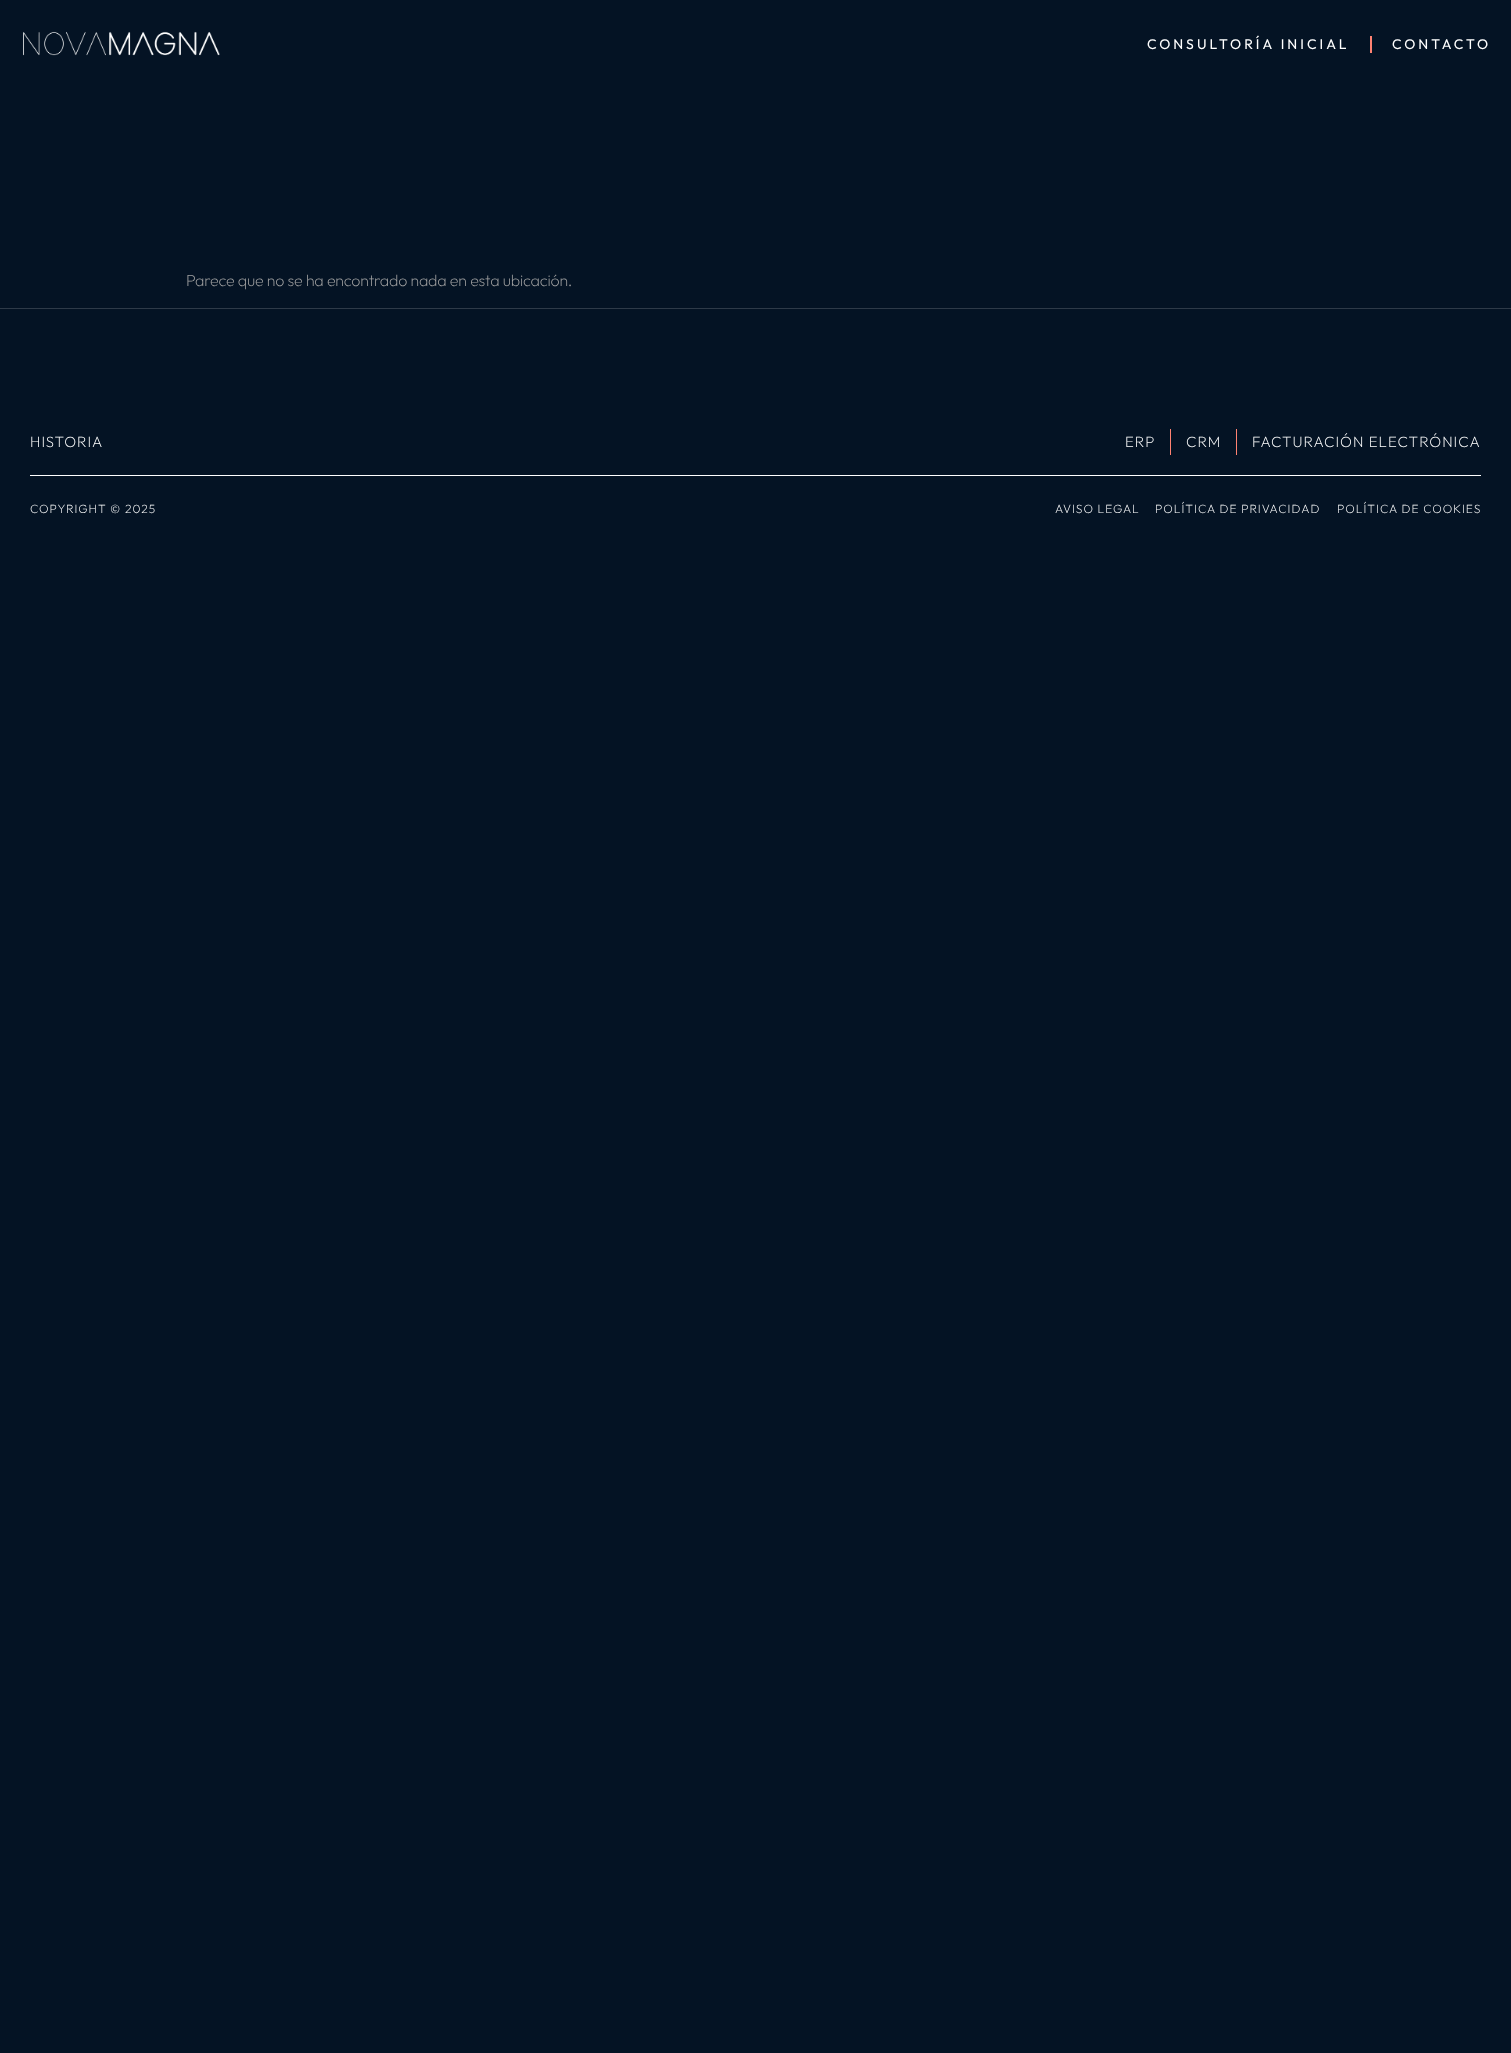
(async () => {
    const canvas = document.querySelector("canvas");
    canvas.width = 1511;
    canvas.height = 2053;
    const context = canvas.getContext("2d");
    context.miterLimit = 4;
    context.fontKerning = "normal";
    function write(s, x, y, font, color) {
        context.font = font;
        context.fillStyle = color;
        context.fillText(s, x, y);
    }
    function block(x, y, w, h, color) {
        context.fillStyle = color;
        context.fillRect(x, y, w, h);
    }
    async function photo(src, x, y, w, h) {
        const img = new Image();
        img.src = src;
        await img.decode();
        context.drawImage(img, x, y, w, h);
    }

    block(0, 0, 1511, 2053, "rgb(4, 19, 36)");
    await photo("media/1.png", 23, 31, 197, 25);
    context.letterSpacing = "3px";
    write("CONSULTORÍA INICIAL", 1147, 49, "14px Outfit", "rgb(255, 255, 255)");
    block(1370, 36, 2, 17, "rgb(255, 130, 114)");
    write("CONTACTO", 1392, 49, "14px Outfit", "rgb(255, 255, 255)");
    context.letterSpacing = "-0.2px";
    write("Parece que no se ha encontrado nada en esta ubicación.", 186, 286, "200 16px Outfit", "rgb(162, 162, 162)");
    block(0, 308, 1511, 1, "rgb(46, 58, 72)");
    context.letterSpacing = "1px";
    write("HISTORIA", 30, 447, "200 15px Outfit", "rgb(255, 255, 255)");
    write("ERP", 1125, 447, "200 15px Outfit", "rgb(255, 255, 255)");
    block(1170, 429, 1, 26, "rgb(255, 130, 114)");
    write("CRM", 1186, 447, "200 15px Outfit", "rgb(255, 255, 255)");
    block(1236, 429, 1, 26, "rgb(255, 130, 114)");
    write("FACTURACIÓN ELECTRÓNICA", 1252, 447, "200 15px Outfit", "rgb(255, 255, 255)");
    block(30, 475, 1451, 1, "rgb(255, 255, 255)");
    write("COPYRIGHT © 2025", 30, 513, "200 12px Outfit", "rgb(255, 255, 255)");
    write("AVISO LEGAL", 1055, 513, "200 12px Outfit", "rgb(255, 255, 255)");
    write("POLÍTICA DE PRIVACIDAD", 1155, 513, "200 12px Outfit", "rgb(255, 255, 255)");
    write("POLÍTICA DE COOKIES", 1337, 513, "200 12px Outfit", "rgb(255, 255, 255)");
})();
